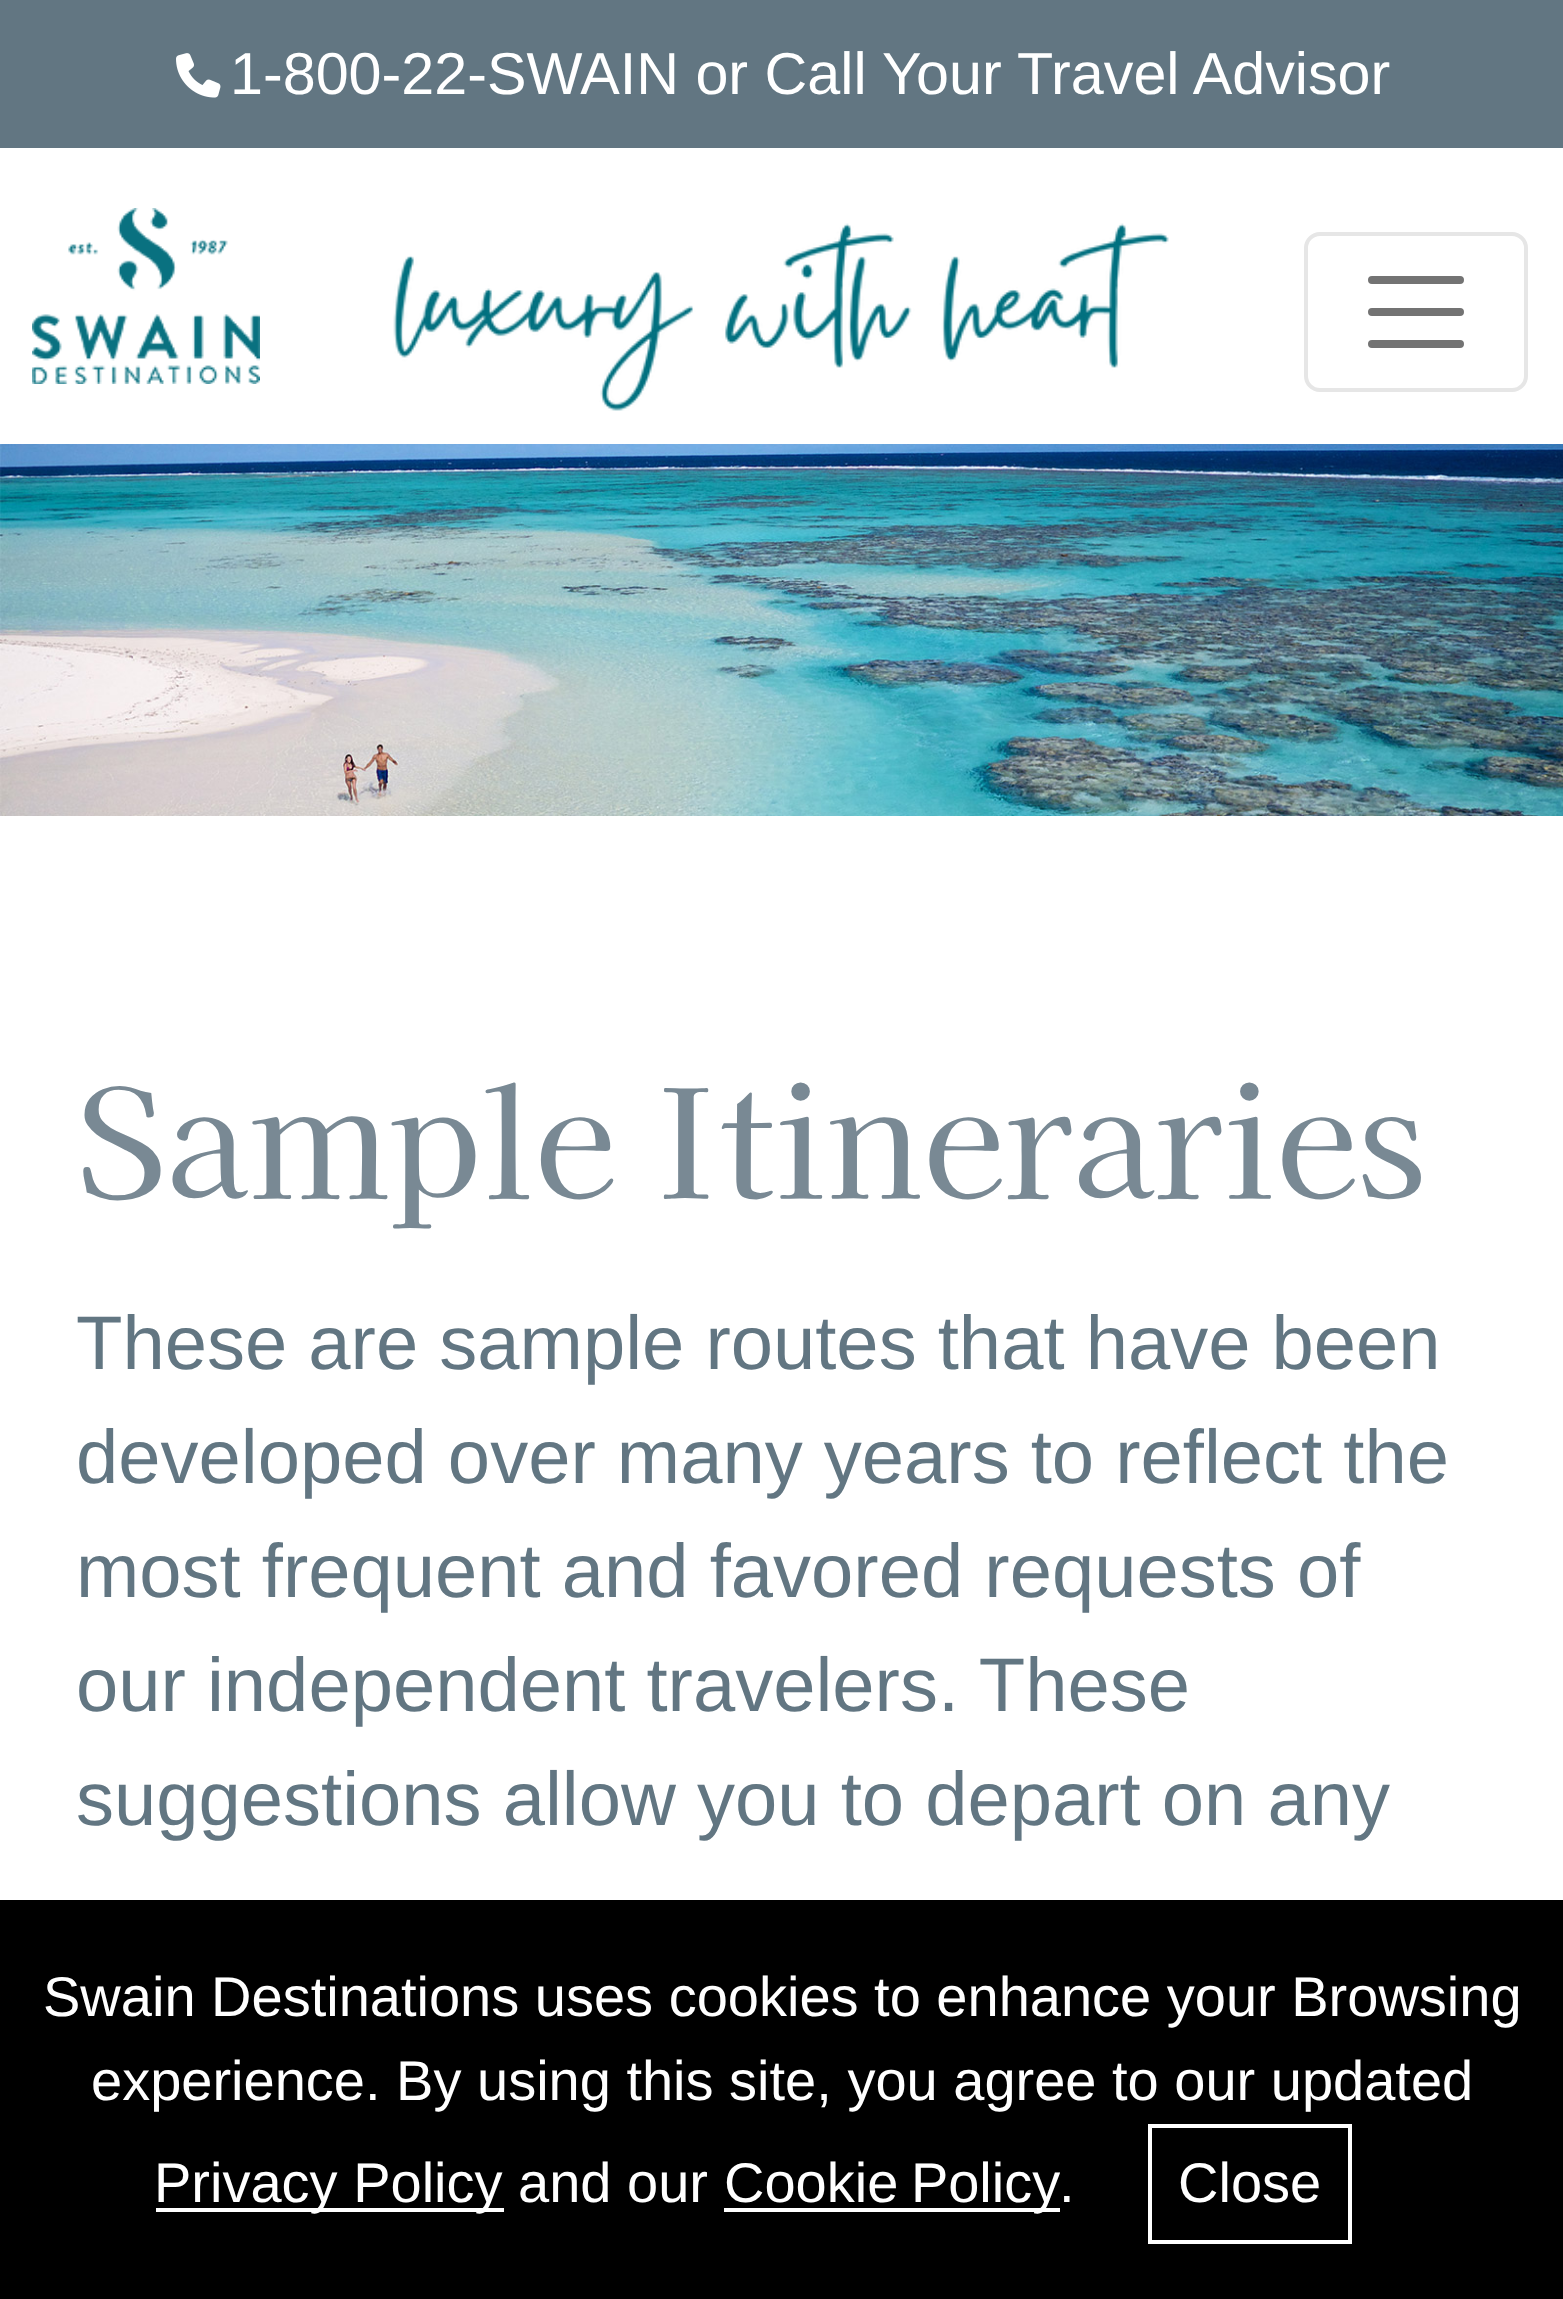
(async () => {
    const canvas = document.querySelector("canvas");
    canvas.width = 1563;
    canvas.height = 2299;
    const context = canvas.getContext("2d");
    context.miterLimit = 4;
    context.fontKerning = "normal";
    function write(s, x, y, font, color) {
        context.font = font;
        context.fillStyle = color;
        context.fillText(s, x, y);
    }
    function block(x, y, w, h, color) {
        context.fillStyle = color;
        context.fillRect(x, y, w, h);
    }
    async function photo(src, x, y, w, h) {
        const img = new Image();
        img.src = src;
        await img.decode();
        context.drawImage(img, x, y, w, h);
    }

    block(0, 0, 1563, 2299, "rgb(255, 255, 255)");
    block(0, 0, 1563, 148, "rgb(98, 118, 130)");
    await photo("media/1.png", 176, 53, 45, 45);
    write("1-800-22-SWAIN or Call Your Travel Advisor", 230, 94, "59.25px Liberation Sans", "rgb(255, 255, 255)");
    await photo("media/2.png", 32, 208, 228, 176);
    await photo("media/3.png", 393, 223, 776, 188);
    context.beginPath();
    context.roundRect(1306, 234, 220, 156, 14);
    context.strokeStyle = "rgb(230, 230, 230)";
    context.lineWidth = 4;
    context.stroke();
    context.beginPath();
    context.moveTo(1372, 280);
    context.lineTo(1460, 280);
    context.moveTo(1372, 312);
    context.lineTo(1460, 312);
    context.moveTo(1372, 344);
    context.lineTo(1460, 344);
    context.strokeStyle = "rgb(115, 115, 115)";
    context.lineWidth = 8;
    context.lineCap = "round";
    context.stroke();
    await photo("media/4.png", 0, 444, 1563, 372);
    write("Sample Itineraries", 76, 1199, "152px Kaisei Opti", "rgb(121, 137, 148)");
    write("These are sample routes that have been", 76, 1369, "76px Liberation Sans", "rgb(98, 118, 130)");
    write("developed over many years to reflect the", 76, 1483, "76px Liberation Sans", "rgb(98, 118, 130)");
    write("most frequent and favored requests of", 76, 1597, "76px Liberation Sans", "rgb(98, 118, 130)");
    write("our independent travelers. These", 76, 1711, "76px Liberation Sans", "rgb(98, 118, 130)");
    write("suggestions allow you to depart on any", 76, 1825, "76px Liberation Sans", "rgb(98, 118, 130)");
    block(0, 1900, 1563, 399, "rgb(0, 0, 0)");
    write("Swain Destinations uses cookies to enhance your Browsing", 43, 2016, "56px Liberation Sans", "rgb(255, 255, 255)");
    write("experience. By using this site, you agree to our updated", 91, 2100, "56px Liberation Sans", "rgb(255, 255, 255)");
    block(156, 2208, 348, 4, "rgb(255, 255, 255)");
    write("Privacy Policy and our", 154, 2202, "56px Liberation Sans", "rgb(255, 255, 255)");
    block(724, 2208, 336, 4, "rgb(255, 255, 255)");
    context.wordSpacing = "-3px";
    write("Cookie Policy", 724, 2202, "56px Liberation Sans", "rgb(255, 255, 255)");
    context.wordSpacing = "0px";
    write(".", 1059, 2202, "56px Liberation Sans", "rgb(255, 255, 255)");
    context.strokeStyle = "rgb(255, 255, 255)";
    context.lineWidth = 4;
    context.strokeRect(1150, 2126, 200, 116);
    write("Close", 1178, 2202, "56px Liberation Sans", "rgb(255, 255, 255)");
})();
